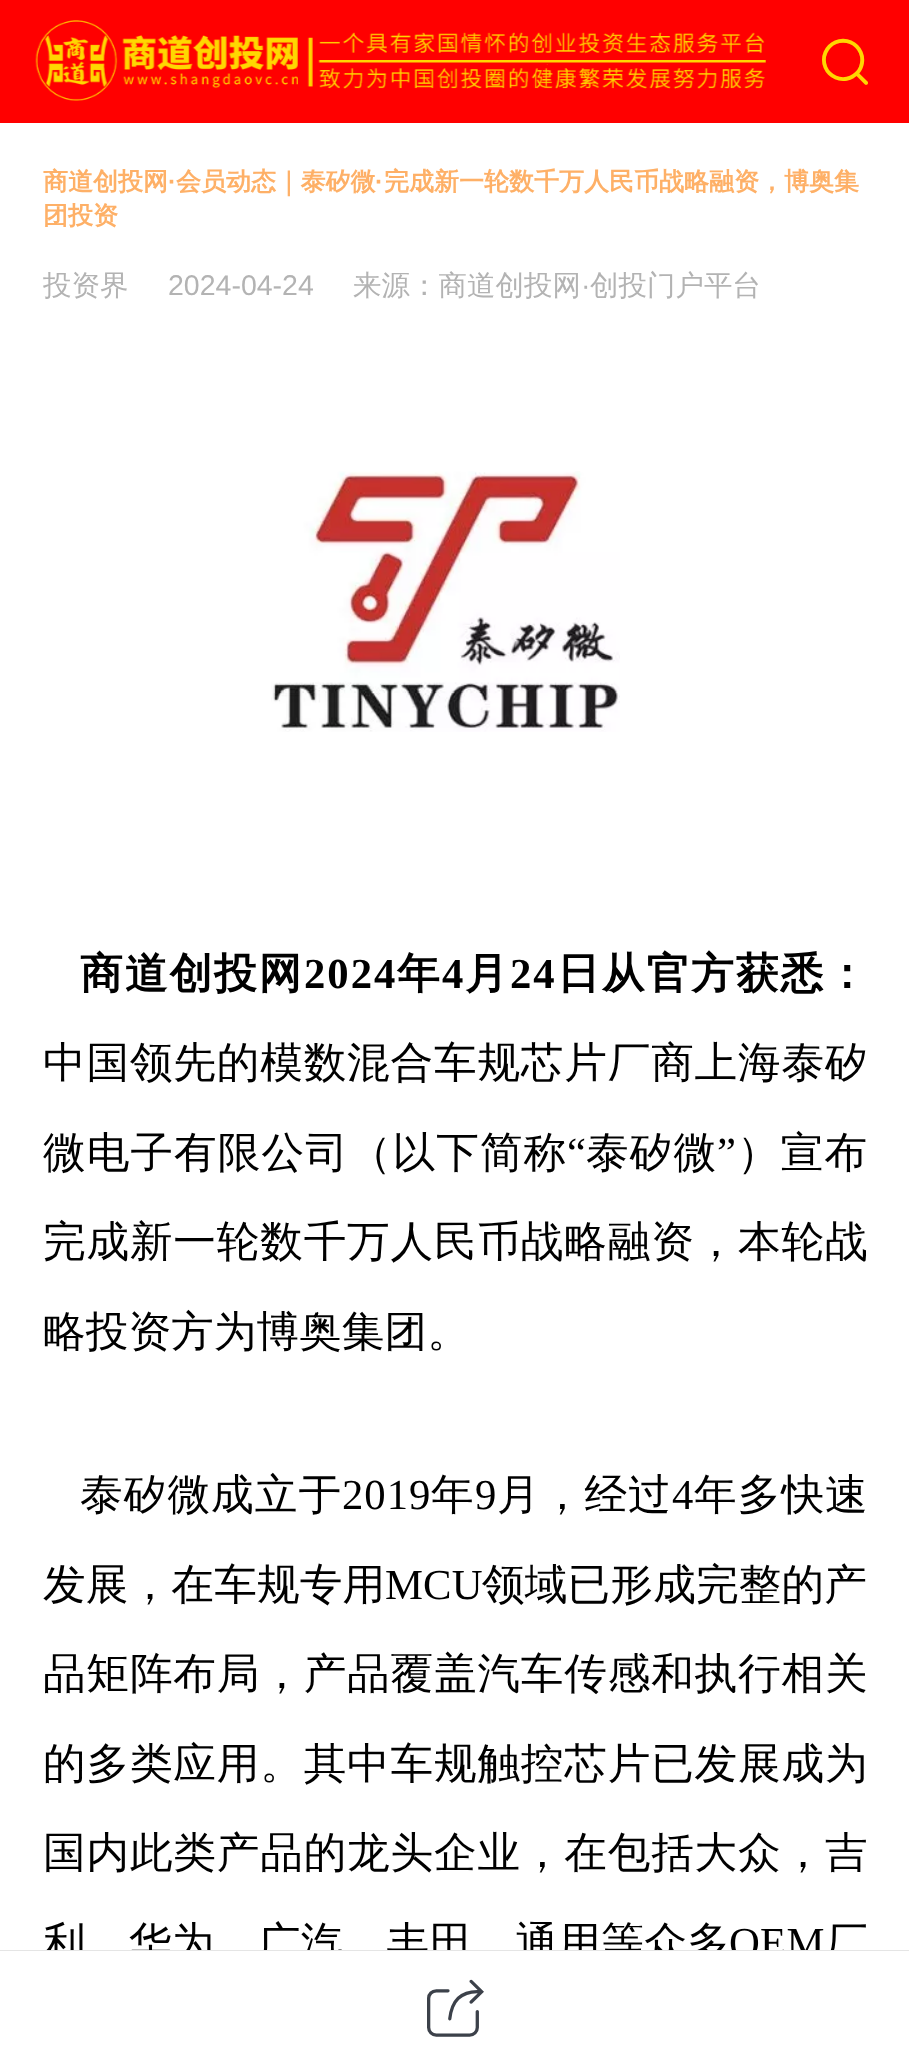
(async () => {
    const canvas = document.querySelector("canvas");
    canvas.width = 909;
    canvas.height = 2063;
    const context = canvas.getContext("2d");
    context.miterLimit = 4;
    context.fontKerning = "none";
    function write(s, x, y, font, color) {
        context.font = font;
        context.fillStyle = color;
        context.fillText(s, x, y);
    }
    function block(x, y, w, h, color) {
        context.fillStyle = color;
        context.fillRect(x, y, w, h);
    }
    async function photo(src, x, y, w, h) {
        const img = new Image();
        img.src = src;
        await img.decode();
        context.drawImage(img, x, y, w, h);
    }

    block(0, 0, 909, 2063, "rgb(255, 255, 255)");
    block(0, 0, 909, 123, "rgb(255, 0, 0)");
    await photo("media/1.png", 35, 20, 731, 81);
    write("򰊐", 822, 81, "46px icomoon", "rgb(255, 215, 0)");
    write("商道创投网", 43, 190, "bold 25px WenQuanYi Zen Hei", "rgb(254, 176, 103)");
    write("·", 168, 190, "bold 25px Liberation Sans", "rgb(254, 176, 103)");
    write("会员动态｜泰矽微", 176, 190, "bold 25px WenQuanYi Zen Hei", "rgb(254, 176, 103)");
    write("·", 375, 190, "bold 25px Liberation Sans", "rgb(254, 176, 103)");
    write("完成新一轮数千万人民币战略融资，博奥集", 384, 190, "bold 25px WenQuanYi Zen Hei", "rgb(254, 176, 103)");
    write("团投资", 43, 224, "bold 25px WenQuanYi Zen Hei", "rgb(254, 176, 103)");
    write("投资界", 43, 295, "500 28.5px WenQuanYi Zen Hei", "rgb(179, 179, 179)");
    write("2024-04-24", 168, 295, "28.5px Liberation Sans", "rgb(179, 179, 179)");
    write("来源：商道创投网", 353, 295, "500 28.5px WenQuanYi Zen Hei", "rgb(179, 179, 179)");
    write("·", 581, 295, "28.5px Liberation Sans", "rgb(179, 179, 179)");
    write("创投门户平台", 590, 295, "500 28.5px WenQuanYi Zen Hei", "rgb(179, 179, 179)");
    await photo("media/2.png", 271, 471, 349, 261);
    context.letterSpacing = "2px";
    write("商道创投网", 80, 988, "bold 42.7px WenQuanYi Zen Hei", "rgb(0, 0, 0)");
    write("2024", 304, 988, "bold 42.7px Liberation Serif", "rgb(0, 0, 0)");
    write("年", 397, 988, "bold 42.7px WenQuanYi Zen Hei", "rgb(0, 0, 0)");
    write("4", 442, 988, "bold 42.7px Liberation Serif", "rgb(0, 0, 0)");
    write("月", 465, 988, "bold 42.7px WenQuanYi Zen Hei", "rgb(0, 0, 0)");
    write("24", 510, 988, "bold 42.7px Liberation Serif", "rgb(0, 0, 0)");
    write("日从官方获悉：", 557, 988, "bold 42.7px WenQuanYi Zen Hei", "rgb(0, 0, 0)");
    context.letterSpacing = "0.75px";
    write("中国领先的模数混合车规芯片厂商上海泰矽", 43, 1077, "500 42.7px WenQuanYi Zen Hei", "rgb(0, 0, 0)");
    context.letterSpacing = "1px";
    write("微电子有限公司（以下简称", 43, 1167, "500 42.7px WenQuanYi Zen Hei", "rgb(0, 0, 0)");
    write("“", 567, 1167, "42.7px Liberation Serif", "rgb(0, 0, 0)");
    write("泰矽微", 586, 1167, "500 42.7px WenQuanYi Zen Hei", "rgb(0, 0, 0)");
    write("”", 717, 1167, "42.7px Liberation Serif", "rgb(0, 0, 0)");
    write("）宣布", 737, 1167, "500 42.7px WenQuanYi Zen Hei", "rgb(0, 0, 0)");
    context.letterSpacing = "0.75px";
    write("完成新一轮数千万人民币战略融资，本轮战", 43, 1256, "500 42.7px WenQuanYi Zen Hei", "rgb(0, 0, 0)");
    context.letterSpacing = "0px";
    write("略投资方为博奥集团。", 43, 1346, "500 42.7px WenQuanYi Zen Hei", "rgb(0, 0, 0)");
    context.letterSpacing = "1px";
    write("泰矽微成立于", 80, 1509, "500 42.7px WenQuanYi Zen Hei", "rgb(0, 0, 0)");
    write("2019", 342, 1509, "42.7px Liberation Serif", "rgb(0, 0, 0)");
    write("年", 431, 1509, "500 42.7px WenQuanYi Zen Hei", "rgb(0, 0, 0)");
    write("9", 475, 1509, "42.7px Liberation Serif", "rgb(0, 0, 0)");
    write("月，经过", 497, 1509, "500 42.7px WenQuanYi Zen Hei", "rgb(0, 0, 0)");
    write("4", 672, 1509, "42.7px Liberation Serif", "rgb(0, 0, 0)");
    write("年多快速", 694, 1509, "500 42.7px WenQuanYi Zen Hei", "rgb(0, 0, 0)");
    context.letterSpacing = "0.1px";
    write("发展，在车规专用", 43, 1599, "500 42.7px WenQuanYi Zen Hei", "rgb(0, 0, 0)");
    write("MCU", 385, 1599, "42.7px Liberation Serif", "rgb(0, 0, 0)");
    write("领域已形成完整的产", 482, 1599, "500 42.7px WenQuanYi Zen Hei", "rgb(0, 0, 0)");
    context.letterSpacing = "0.75px";
    write("品矩阵布局，产品覆盖汽车传感和执行相关", 43, 1688, "500 42.7px WenQuanYi Zen Hei", "rgb(0, 0, 0)");
    write("的多类应用。其中车规触控芯片已发展成为", 43, 1778, "500 42.7px WenQuanYi Zen Hei", "rgb(0, 0, 0)");
    write("国内此类产品的龙头企业，在包括大众，吉", 43, 1867, "500 42.7px WenQuanYi Zen Hei", "rgb(0, 0, 0)");
    context.letterSpacing = "0.25px";
    write("利，华为，广汽，丰田，通用等众多", 43, 1957, "500 42.7px WenQuanYi Zen Hei", "rgb(0, 0, 0)");
    write("OEM", 729, 1957, "42.7px Liberation Serif", "rgb(0, 0, 0)");
    write("厂", 825, 1957, "500 42.7px WenQuanYi Zen Hei", "rgb(0, 0, 0)");
    block(42, 1951, 792, 12, "rgb(255, 255, 255)");
    block(0, 1950, 909, 1, "rgb(229, 229, 229)");
    context.letterSpacing = "0px";
    write("򰌐", 427, 2032, "57px icomoon", "rgb(60, 65, 74)");
})();
